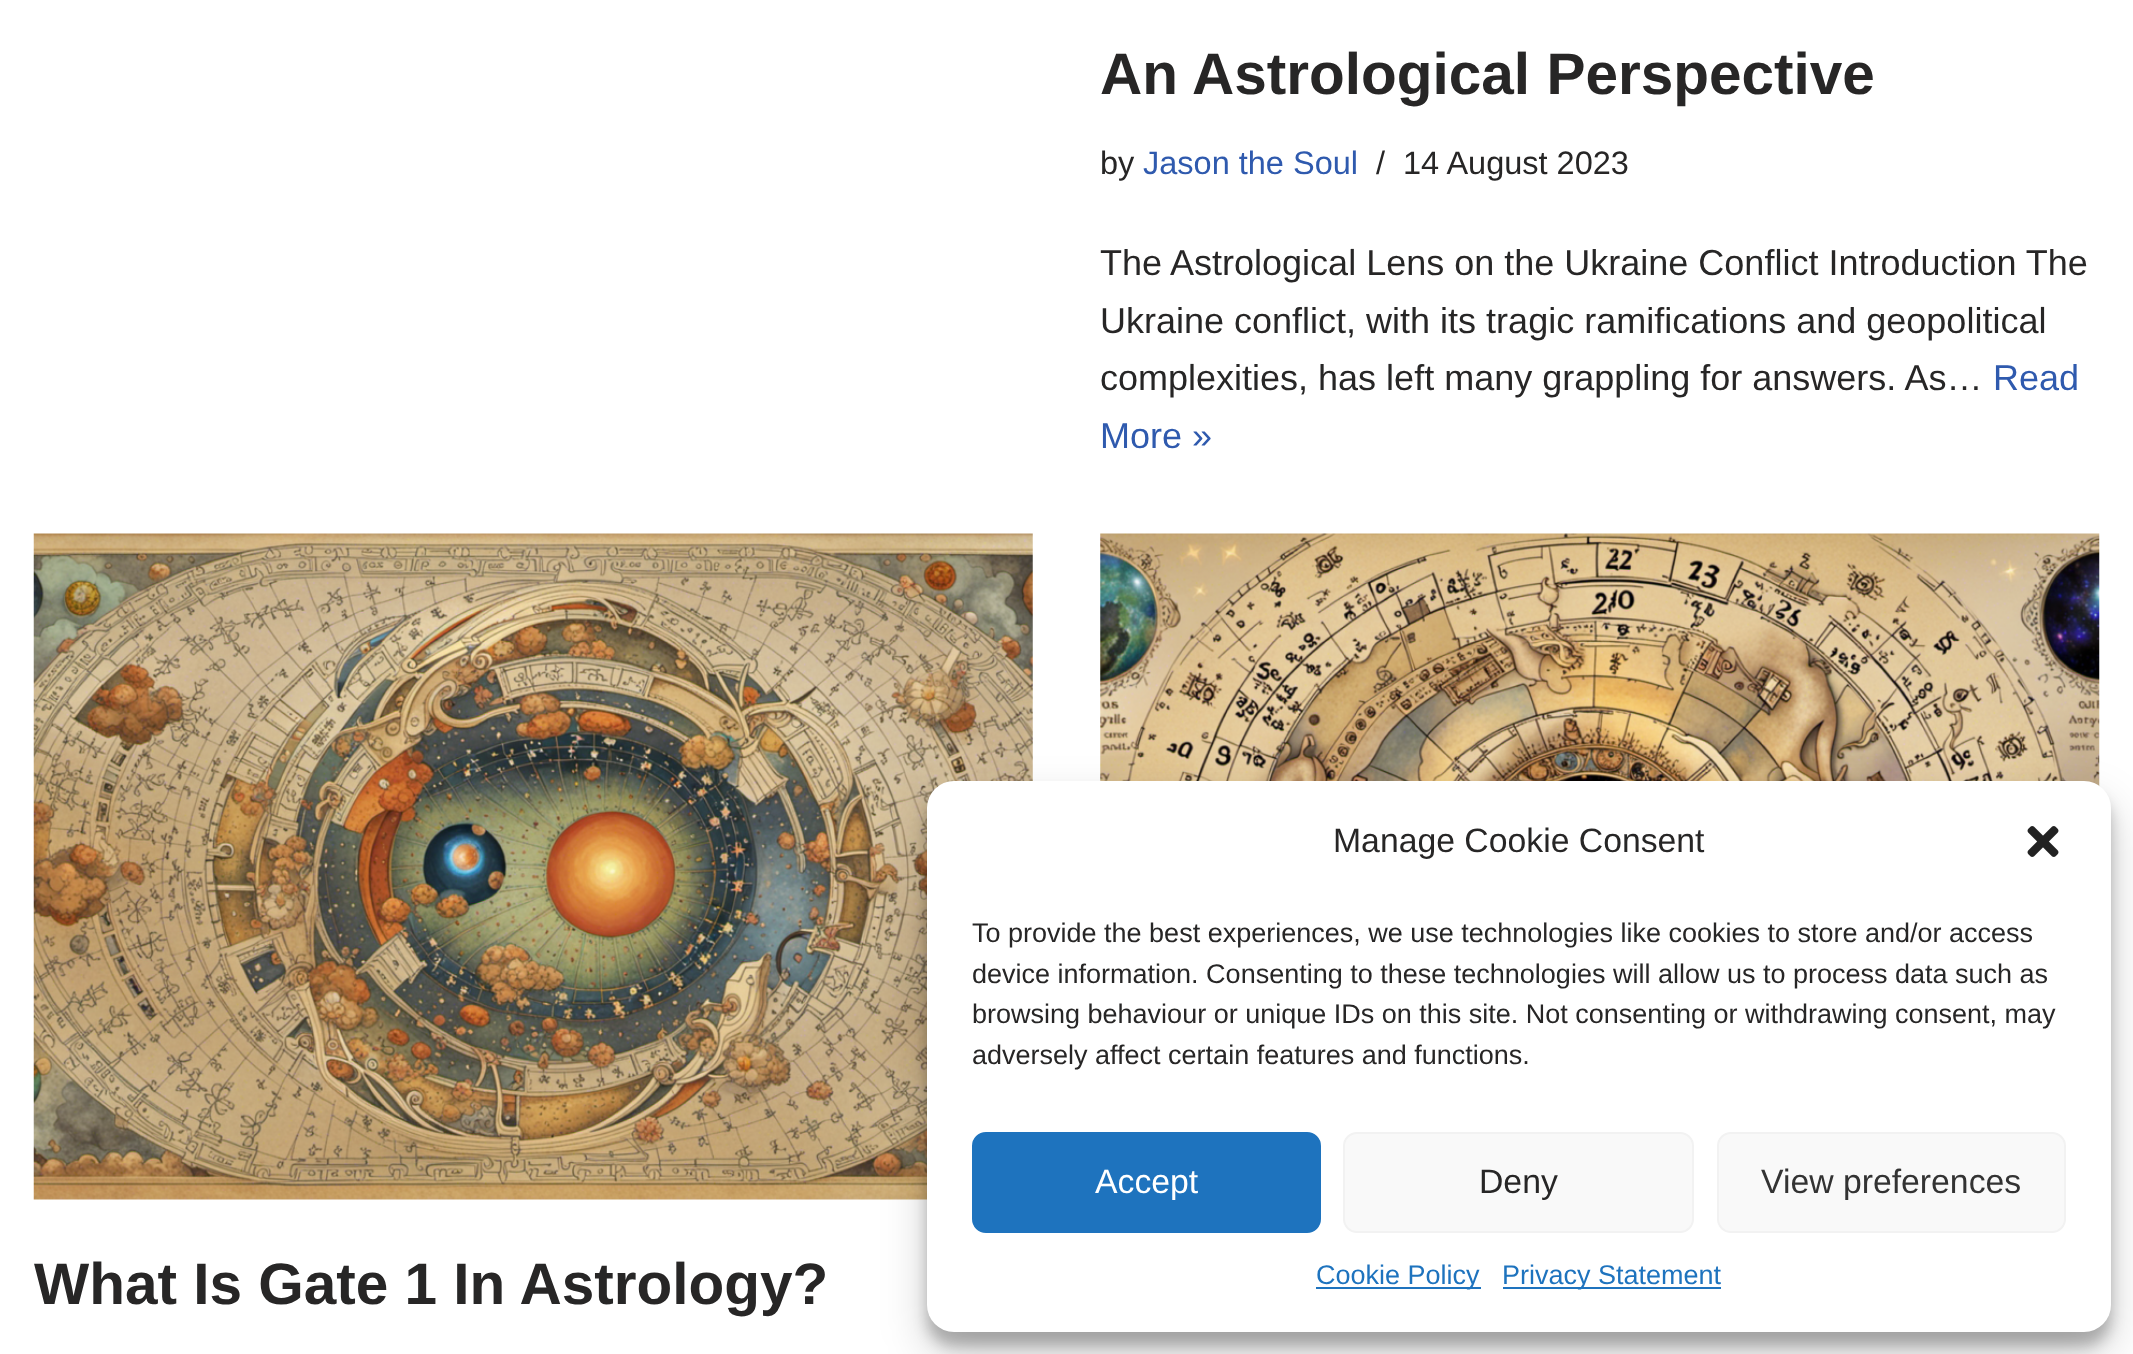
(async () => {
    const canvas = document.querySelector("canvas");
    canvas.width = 2133;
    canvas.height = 1354;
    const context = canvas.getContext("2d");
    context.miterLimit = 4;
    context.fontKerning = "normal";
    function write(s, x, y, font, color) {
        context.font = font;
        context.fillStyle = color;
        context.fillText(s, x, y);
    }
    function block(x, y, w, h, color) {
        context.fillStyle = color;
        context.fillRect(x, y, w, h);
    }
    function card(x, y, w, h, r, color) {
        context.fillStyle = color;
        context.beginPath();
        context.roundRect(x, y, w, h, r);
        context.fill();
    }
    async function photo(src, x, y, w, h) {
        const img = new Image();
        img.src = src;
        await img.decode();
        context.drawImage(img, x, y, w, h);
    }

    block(0, 0, 2133, 1354, "rgb(255, 255, 255)");
    write("An Astrological Perspective", 1100, 94, "bold 58.5px Liberation Sans", "rgb(39, 38, 38)");
    write("by", 1100, 174, "32.5px Liberation Sans", "rgb(39, 38, 38)");
    write("Jason the Soul", 1143, 174, "32.5px Liberation Sans", "rgb(47, 90, 174)");
    write("/", 1376, 174, "32.5px Liberation Sans", "rgb(39, 38, 38)");
    write("14 August 2023", 1403, 174, "32.5px Liberation Sans", "rgb(39, 38, 38)");
    write("The Astrological Lens on the Ukraine Conflict Introduction The", 1100, 275, "36px Liberation Sans", "rgb(39, 38, 38)");
    write("Ukraine conflict, with its tragic ramifications and geopolitical", 1100, 333, "36px Liberation Sans", "rgb(39, 38, 38)");
    write("complexities, has left many grappling for answers. As…", 1100, 390, "36px Liberation Sans", "rgb(39, 38, 38)");
    write("Read", 1993, 390, "36px Liberation Sans", "rgb(47, 90, 174)");
    write("More »", 1100, 448, "36px Liberation Sans", "rgb(47, 90, 174)");
    await photo("media/1.png", 1100, 533, 1000, 254);
    await photo("media/2.png", 33, 533, 1000, 667);
    write("What Is Gate 1 In Astrology?", 34, 1304, "bold 58.5px Liberation Sans", "rgb(39, 38, 38)");
    context.fillStyle = "rgba(0, 0, 0, 0.23)";
    context.filter = "blur(7px)";
    context.beginPath();
    context.roundRect(927, 794, 1184, 552, 27);
    context.fill();
    context.filter = "none";
    context.fillStyle = "rgba(0, 0, 0, 0.19)";
    context.filter = "blur(22.5px)";
    context.beginPath();
    context.roundRect(927, 803, 1184, 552, 27);
    context.fill();
    context.filter = "none";
    card(927, 781, 1184, 551, 27, "rgb(255, 255, 255)");
    write("Manage Cookie Consent", 1333, 852, "33.75px Liberation Sans", "rgb(39, 38, 38)");
    await photo("media/3.png", 2027, 826, 32, 31);
    write("To provide the best experiences, we use technologies like cookies to store and/or access", 972, 942, "27px Liberation Sans", "rgb(39, 38, 38)");
    write("device information. Consenting to these technologies will allow us to process data such as", 972, 983, "27px Liberation Sans", "rgb(39, 38, 38)");
    write("browsing behaviour or unique IDs on this site. Not consenting or withdrawing consent, may", 972, 1023, "27px Liberation Sans", "rgb(39, 38, 38)");
    write("adversely affect certain features and functions.", 972, 1064, "27px Liberation Sans", "rgb(39, 38, 38)");
    context.fillStyle = "rgb(30, 115, 190)";
    context.beginPath();
    context.roundRect(973, 1133, 347, 99, 13);
    context.fill();
    context.strokeStyle = "rgb(30, 115, 190)";
    context.lineWidth = 2;
    context.stroke();
    write("Accept", 1095, 1193, "33.75px Liberation Sans", "rgb(255, 255, 255)");
    context.fillStyle = "rgb(249, 249, 249)";
    context.beginPath();
    context.roundRect(1344, 1133, 349, 99, 13);
    context.fill();
    context.strokeStyle = "rgb(242, 242, 242)";
    context.stroke();
    write("Deny", 1479, 1193, "33.75px Liberation Sans", "rgb(39, 38, 38)");
    context.fillStyle = "rgb(249, 249, 249)";
    context.beginPath();
    context.roundRect(1718, 1133, 347, 99, 13);
    context.fill();
    context.stroke();
    write("View preferences", 1761, 1193, "33.75px Liberation Sans", "rgb(51, 51, 51)");
    block(1316, 1287, 165, 2, "rgb(30, 115, 190)");
    write("Cookie Policy", 1316, 1284, "27px Liberation Sans", "rgb(30, 115, 190)");
    block(1503, 1287, 218, 2, "rgb(30, 115, 190)");
    write("Privacy Statement", 1502, 1284, "27px Liberation Sans", "rgb(30, 115, 190)");
})();
